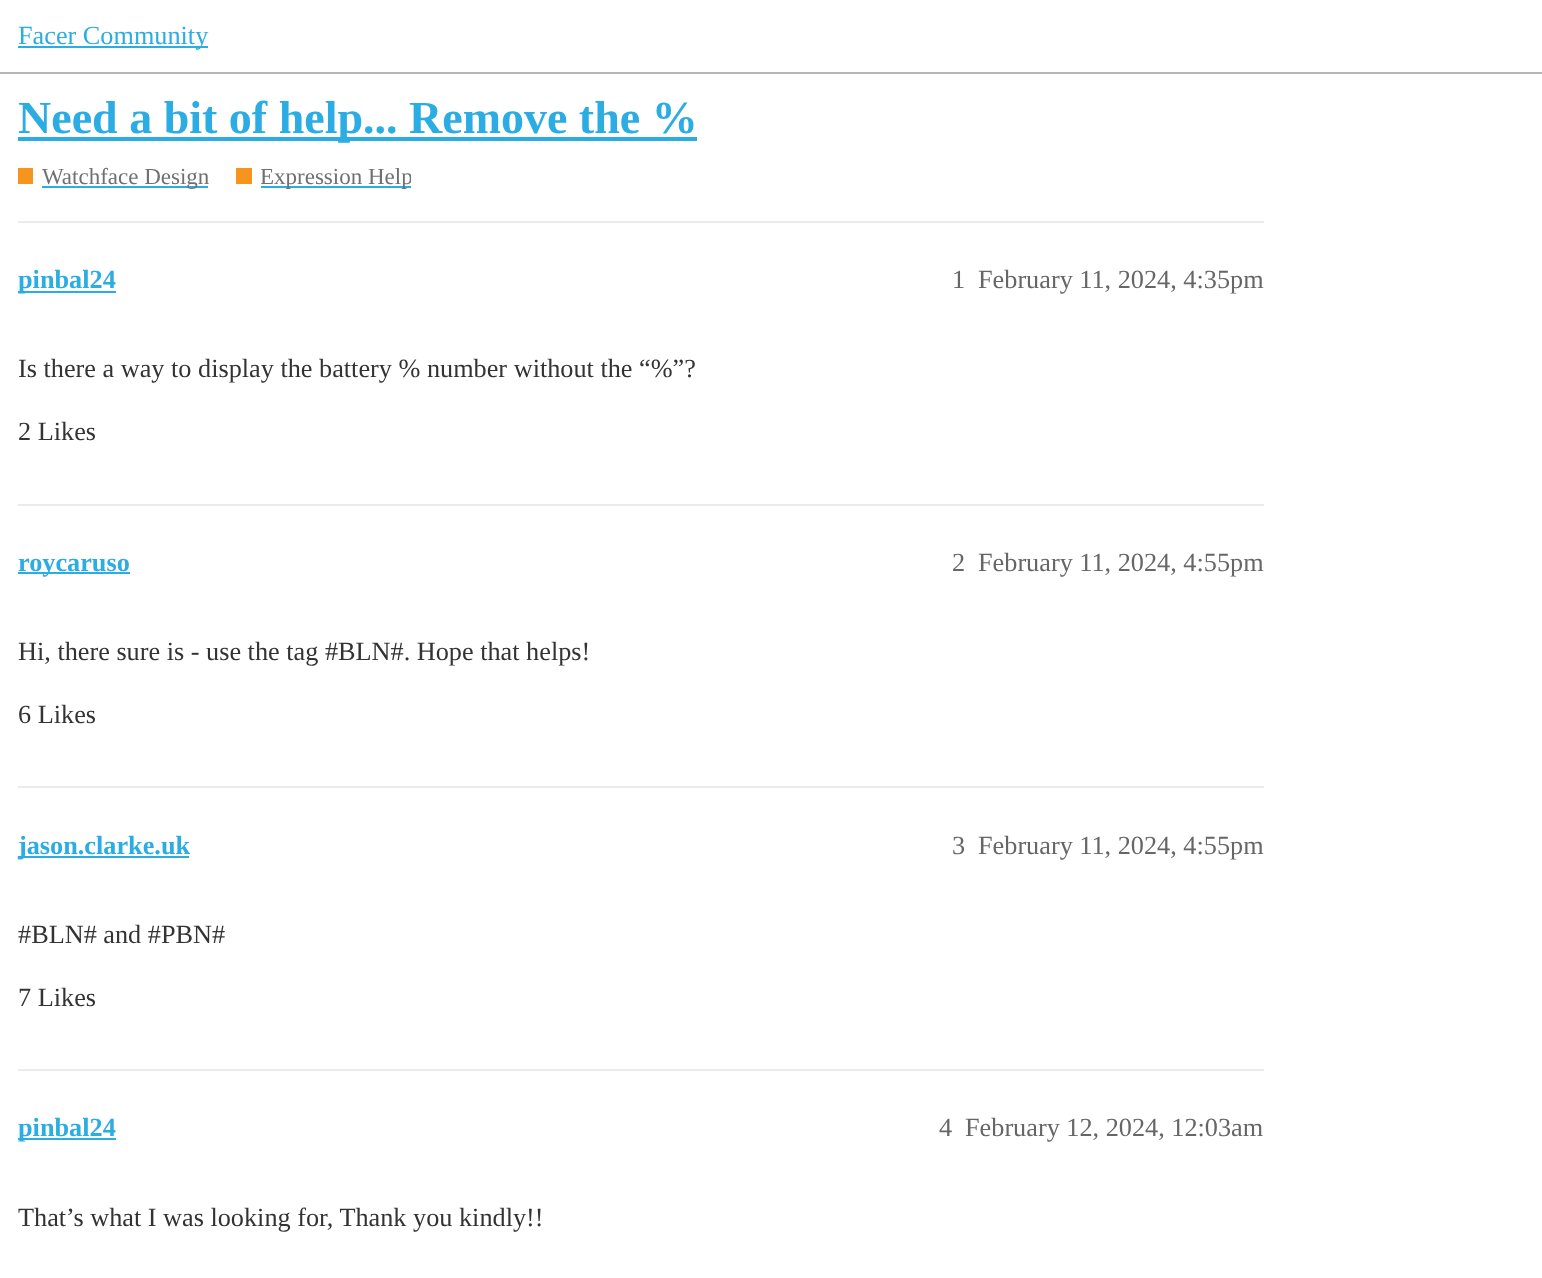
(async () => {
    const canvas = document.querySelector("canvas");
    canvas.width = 1542;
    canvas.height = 1278;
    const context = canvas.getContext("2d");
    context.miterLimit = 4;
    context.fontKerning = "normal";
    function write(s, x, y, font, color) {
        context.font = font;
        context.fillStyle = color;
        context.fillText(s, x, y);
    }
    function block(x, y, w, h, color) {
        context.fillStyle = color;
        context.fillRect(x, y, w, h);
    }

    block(0, 0, 1542, 1278, "rgb(255, 255, 255)");
    block(0, 72, 1542, 2, "rgb(182, 182, 182)");
    block(18, 46, 190, 2, "rgb(43, 173, 227)");
    write("Facer Community", 18, 44, "26.25px Liberation Serif", "rgb(43, 173, 227)");
    block(18, 137, 679, 4, "rgb(43, 173, 227)");
    write("Need a bit of help... Remove the %", 18, 133, "bold 46px Liberation Serif", "rgb(43, 173, 227)");
    block(18, 168, 15, 16, "rgb(247, 148, 29)");
    block(42, 186, 166, 2, "rgb(43, 173, 227)");
    write("Watchface Design", 42, 184, "23px Liberation Serif", "rgb(112, 112, 112)");
    block(236, 168, 16, 16, "rgb(247, 148, 29)");
    block(261, 186, 150, 2, "rgb(43, 173, 227)");
    context.save();
    context.beginPath();
    context.rect(261, 161, 150, 32);
    context.clip();
    write("Expression Help", 260, 184, "23px Liberation Serif", "rgb(112, 112, 112)");
    context.restore();
    block(18, 221, 1246, 2, "rgb(235, 235, 235)");
    block(18, 291, 98, 2, "rgb(43, 173, 227)");
    write("pinbal24", 18, 288, "bold 26.25px Liberation Serif", "rgb(43, 173, 227)");
    write("1", 952, 288, "26.25px Liberation Serif", "rgb(102, 102, 102)");
    write("February 11, 2024, 4:35pm", 978, 288, "26.25px Liberation Serif", "rgb(102, 102, 102)");
    write("Is there a way to display the battery % number without the “%”?", 18, 377, "26.25px Liberation Serif", "rgb(51, 51, 51)");
    write("2 Likes", 18, 440, "26.25px Liberation Serif", "rgb(51, 51, 51)");
    block(18, 504, 1246, 2, "rgb(235, 235, 235)");
    block(18, 572, 112, 2, "rgb(43, 173, 227)");
    write("roycaruso", 18, 571, "bold 26.25px Liberation Serif", "rgb(43, 173, 227)");
    write("2", 952, 571, "26.25px Liberation Serif", "rgb(102, 102, 102)");
    write("February 11, 2024, 4:55pm", 978, 571, "26.25px Liberation Serif", "rgb(102, 102, 102)");
    write("Hi, there sure is - use the tag #BLN#. Hope that helps!", 18, 660, "26.25px Liberation Serif", "rgb(51, 51, 51)");
    write("6 Likes", 18, 723, "26.25px Liberation Serif", "rgb(51, 51, 51)");
    block(18, 786, 1246, 2, "rgb(235, 235, 235)");
    block(18, 856, 171, 2, "rgb(43, 173, 227)");
    write("jason.clarke.uk", 18, 854, "bold 26.25px Liberation Serif", "rgb(43, 173, 227)");
    write("3", 952, 854, "26.25px Liberation Serif", "rgb(102, 102, 102)");
    write("February 11, 2024, 4:55pm", 978, 854, "26.25px Liberation Serif", "rgb(102, 102, 102)");
    write("#BLN# and #PBN#", 18, 943, "26.25px Liberation Serif", "rgb(51, 51, 51)");
    write("7 Likes", 18, 1006, "26.25px Liberation Serif", "rgb(51, 51, 51)");
    block(18, 1069, 1246, 2, "rgb(235, 235, 235)");
    block(18, 1138, 98, 2, "rgb(43, 173, 227)");
    write("pinbal24", 18, 1136, "bold 26.25px Liberation Serif", "rgb(43, 173, 227)");
    write("4", 939, 1136, "26.25px Liberation Serif", "rgb(102, 102, 102)");
    write("February 12, 2024, 12:03am", 965, 1136, "26.25px Liberation Serif", "rgb(102, 102, 102)");
    write("That’s what I was looking for, Thank you kindly!!", 18, 1226, "26.25px Liberation Serif", "rgb(51, 51, 51)");
})();
